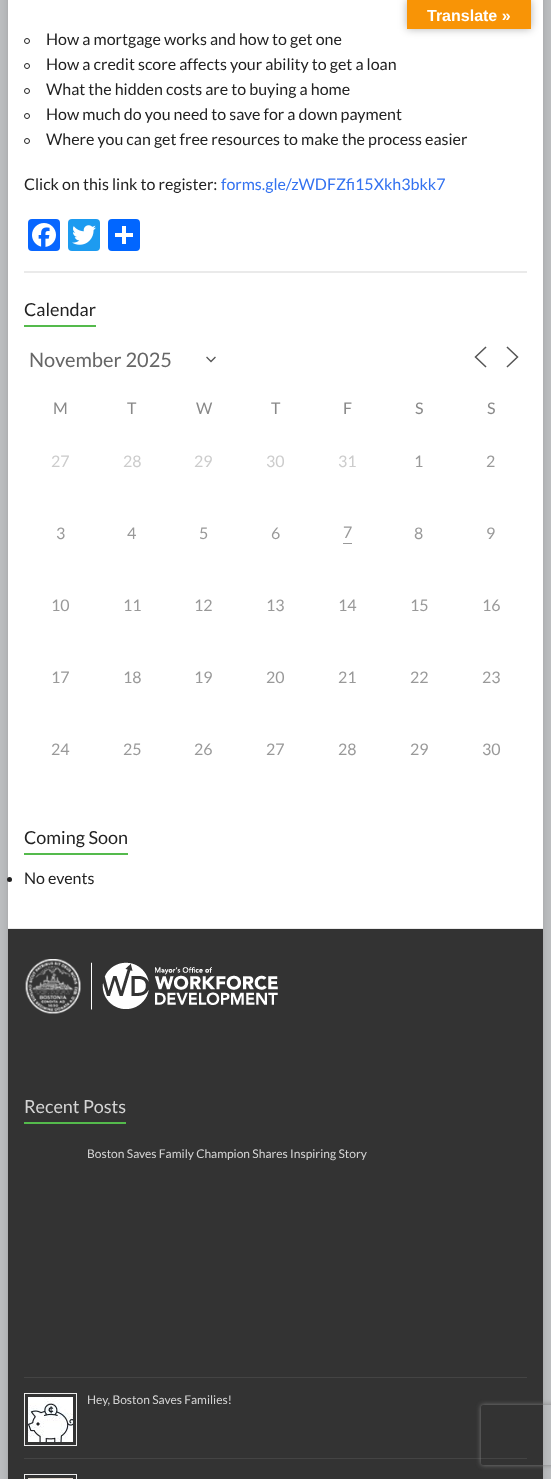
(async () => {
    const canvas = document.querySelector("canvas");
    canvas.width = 551;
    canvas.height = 1479;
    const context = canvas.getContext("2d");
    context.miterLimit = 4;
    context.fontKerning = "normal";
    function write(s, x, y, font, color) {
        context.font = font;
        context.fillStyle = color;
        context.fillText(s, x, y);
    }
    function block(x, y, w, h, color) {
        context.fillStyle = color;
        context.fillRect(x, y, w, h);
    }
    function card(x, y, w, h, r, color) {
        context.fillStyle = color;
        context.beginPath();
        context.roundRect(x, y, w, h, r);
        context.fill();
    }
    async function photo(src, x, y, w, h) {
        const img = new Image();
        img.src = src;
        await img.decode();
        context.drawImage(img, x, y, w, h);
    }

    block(0, 0, 551, 1479, "rgb(187, 189, 191)");
    context.fillStyle = "rgba(100, 100, 100, 0.3)";
    context.filter = "blur(3px)";
    context.beginPath();
    context.rect(8, -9, 535, 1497);
    context.fill();
    context.filter = "none";
    block(8, 0, 535, 928, "rgb(255, 255, 255)");
    context.fillStyle = "rgba(0, 0, 0, 0.3)";
    context.filter = "blur(4.5px)";
    context.beginPath();
    context.rect(407, 0, 124, 29);
    context.fill();
    context.filter = "none";
    block(407, 0, 124, 29, "rgb(248, 148, 6)");
    write("Translate »", 427, 21, "bold 16px Liberation Sans", "rgb(255, 255, 255)");
    context.beginPath();
    context.arc(27, 41, 2.5, 0, Math.PI * 2);
    context.strokeStyle = "rgb(33, 33, 33)";
    context.stroke();
    write("How a mortgage works and how to get one", 46, 45, "16px Lato", "rgb(34, 34, 34)");
    context.beginPath();
    context.arc(27, 66, 2.5, 0, Math.PI * 2);
    context.stroke();
    write("How a credit score affects your ability to get a loan", 46, 70, "16px Lato", "rgb(34, 34, 34)");
    context.beginPath();
    context.arc(27, 91, 2.5, 0, Math.PI * 2);
    context.stroke();
    write("What the hidden costs are to buying a home", 46, 95, "16px Lato", "rgb(34, 34, 34)");
    context.beginPath();
    context.arc(27, 116, 2.5, 0, Math.PI * 2);
    context.stroke();
    write("How much do you need to save for a down payment", 46, 120, "16px Lato", "rgb(34, 34, 34)");
    context.beginPath();
    context.arc(27, 141, 2.5, 0, Math.PI * 2);
    context.stroke();
    write("Where you can get free resources to make the process easier", 46, 145, "16px Lato", "rgb(34, 34, 34)");
    write("Click on this link to register:", 24, 190, "16px Lato", "rgb(34, 34, 34)");
    write("forms.gle/zWDFZfi15Xkh3bkk7", 221, 190, "16px Lato", "rgb(51, 114, 240)");
    card(28, 219, 32, 32, 4, "rgb(8, 102, 255)");
    await photo("media/1.png", 32, 223, 24, 24);
    card(68, 219, 32, 32, 4, "rgb(29, 155, 240)");
    await photo("media/2.png", 72, 225, 24, 20);
    card(108, 219, 32, 32, 4, "rgb(1, 102, 255)");
    block(122, 226, 4, 18, "rgb(255, 255, 255)");
    block(115, 233, 18, 4, "rgb(255, 255, 255)");
    block(24, 271, 503, 2, "rgb(234, 234, 234)");
    write("Calendar", 24, 316, "18px Lato", "rgb(34, 34, 34)");
    block(24, 325, 72, 2, "rgb(84, 186, 76)");
    context.beginPath();
    context.moveTo(207, 357.5);
    context.lineTo(211, 361.5);
    context.lineTo(215, 357.5);
    context.strokeStyle = "rgb(85, 85, 85)";
    context.lineWidth = 1.3;
    context.lineCap = "square";
    context.stroke();
    write("November 2025", 29, 367, "20px Lato", "rgb(102, 102, 102)");
    context.beginPath();
    context.moveTo(485.5, 366.5);
    context.lineTo(475.5, 357);
    context.lineTo(485.5, 347.5);
    context.moveTo(507.5, 366.5);
    context.lineTo(517.5, 357);
    context.lineTo(507.5, 347.5);
    context.lineWidth = 1.5;
    context.stroke();
    write("M", 53, 414, "16px Lato", "rgb(136, 136, 136)");
    write("T", 127, 414, "16px Lato", "rgb(136, 136, 136)");
    write("W", 196, 414, "16px Lato", "rgb(136, 136, 136)");
    write("T", 271, 414, "16px Lato", "rgb(136, 136, 136)");
    write("F", 343, 414, "16px Lato", "rgb(136, 136, 136)");
    write("S", 415, 414, "16px Lato", "rgb(136, 136, 136)");
    write("S", 487, 414, "16px Lato", "rgb(136, 136, 136)");
    write("27", 51, 467, "16px Lato", "rgb(204, 204, 204)");
    write("28", 123, 467, "16px Lato", "rgb(204, 204, 204)");
    write("29", 194, 467, "16px Lato", "rgb(204, 204, 204)");
    write("30", 266, 467, "16px Lato", "rgb(204, 204, 204)");
    write("31", 338, 467, "16px Lato", "rgb(204, 204, 204)");
    write("1", 414, 467, "16px Lato", "rgb(153, 153, 153)");
    write("2", 486, 467, "16px Lato", "rgb(153, 153, 153)");
    write("3", 56, 539, "16px Lato", "rgb(153, 153, 153)");
    write("4", 127, 539, "16px Lato", "rgb(153, 153, 153)");
    write("5", 199, 539, "16px Lato", "rgb(153, 153, 153)");
    write("6", 271, 539, "16px Lato", "rgb(153, 153, 153)");
    write("7", 343, 538, "16px Lato", "rgb(153, 153, 153)");
    block(343, 543, 9, 1, "rgb(153, 153, 153)");
    write("8", 414, 539, "16px Lato", "rgb(153, 153, 153)");
    write("9", 486, 539, "16px Lato", "rgb(153, 153, 153)");
    write("10", 51, 611, "16px Lato", "rgb(153, 153, 153)");
    write("11", 123, 611, "16px Lato", "rgb(153, 153, 153)");
    write("12", 194, 611, "16px Lato", "rgb(153, 153, 153)");
    write("13", 266, 611, "16px Lato", "rgb(153, 153, 153)");
    write("14", 338, 611, "16px Lato", "rgb(153, 153, 153)");
    write("15", 410, 611, "16px Lato", "rgb(153, 153, 153)");
    write("16", 482, 611, "16px Lato", "rgb(153, 153, 153)");
    write("17", 51, 683, "16px Lato", "rgb(153, 153, 153)");
    write("18", 123, 683, "16px Lato", "rgb(153, 153, 153)");
    write("19", 194, 683, "16px Lato", "rgb(153, 153, 153)");
    write("20", 266, 683, "16px Lato", "rgb(153, 153, 153)");
    write("21", 338, 683, "16px Lato", "rgb(153, 153, 153)");
    write("22", 410, 683, "16px Lato", "rgb(153, 153, 153)");
    write("23", 482, 683, "16px Lato", "rgb(153, 153, 153)");
    write("24", 51, 755, "16px Lato", "rgb(153, 153, 153)");
    write("25", 123, 755, "16px Lato", "rgb(153, 153, 153)");
    write("26", 194, 755, "16px Lato", "rgb(153, 153, 153)");
    write("27", 266, 755, "16px Lato", "rgb(153, 153, 153)");
    write("28", 338, 755, "16px Lato", "rgb(153, 153, 153)");
    write("29", 410, 755, "16px Lato", "rgb(153, 153, 153)");
    write("30", 482, 755, "16px Lato", "rgb(153, 153, 153)");
    write("Coming Soon", 24, 844, "18px Lato", "rgb(34, 34, 34)");
    block(24, 853, 104, 2, "rgb(84, 186, 76)");
    context.fillStyle = "rgb(33, 33, 33)";
    context.beginPath();
    context.arc(9.5, 879.5, 2.5, 0, Math.PI * 2);
    context.fill();
    write("No events", 24, 884, "16px Lato", "rgb(34, 34, 34)");
    block(8, 929, 535, 550, "rgb(51, 51, 51)");
    block(8, 928, 535, 1, "rgb(234, 234, 234)");
    await photo("media/3.png", 25, 959, 253, 55);
    write("Recent Posts", 24, 1113, "18px Lato", "rgb(213, 213, 213)");
    block(24, 1122, 102, 2, "rgb(84, 186, 76)");
    block(24, 1377, 503, 1, "rgb(68, 68, 68)");
    write("Boston Saves Family Champion Shares Inspiring Story", 87, 1158, "12px Lato", "rgb(213, 213, 213)");
    block(24, 1458, 503, 1, "rgb(68, 68, 68)");
    context.strokeStyle = "rgb(238, 238, 238)";
    context.lineWidth = 1;
    context.strokeRect(24.5, 1393.5, 52, 52);
    await photo("media/4.png", 28, 1397, 45, 45);
    write("Hey, Boston Saves Families!", 87, 1404, "12px Lato", "rgb(213, 213, 213)");
    context.strokeRect(24.5, 1474.5, 52, 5);
    await photo("media/5.png", 28, 1478, 45, 1);
    context.save();
    context.beginPath();
    context.moveTo(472, 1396);
    context.lineTo(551, 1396);
    context.lineTo(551, 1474);
    context.lineTo(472, 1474);
    context.closePath();
    context.moveTo(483, 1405);
    context.lineTo(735, 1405);
    context.bezierCurveTo(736, 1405, 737, 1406, 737, 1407);
    context.lineTo(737, 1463);
    context.bezierCurveTo(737, 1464, 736, 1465, 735, 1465);
    context.lineTo(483, 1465);
    context.bezierCurveTo(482, 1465, 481, 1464, 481, 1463);
    context.lineTo(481, 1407);
    context.bezierCurveTo(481, 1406, 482, 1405, 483, 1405);
    context.closePath();
    context.clip("evenodd");
    context.fillStyle = "rgb(128, 128, 128)";
    context.filter = "blur(2.5px)";
    context.beginPath();
    context.roundRect(481, 1405, 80, 60, 2);
    context.fill();
    context.filter = "none";
    context.restore();
})();
